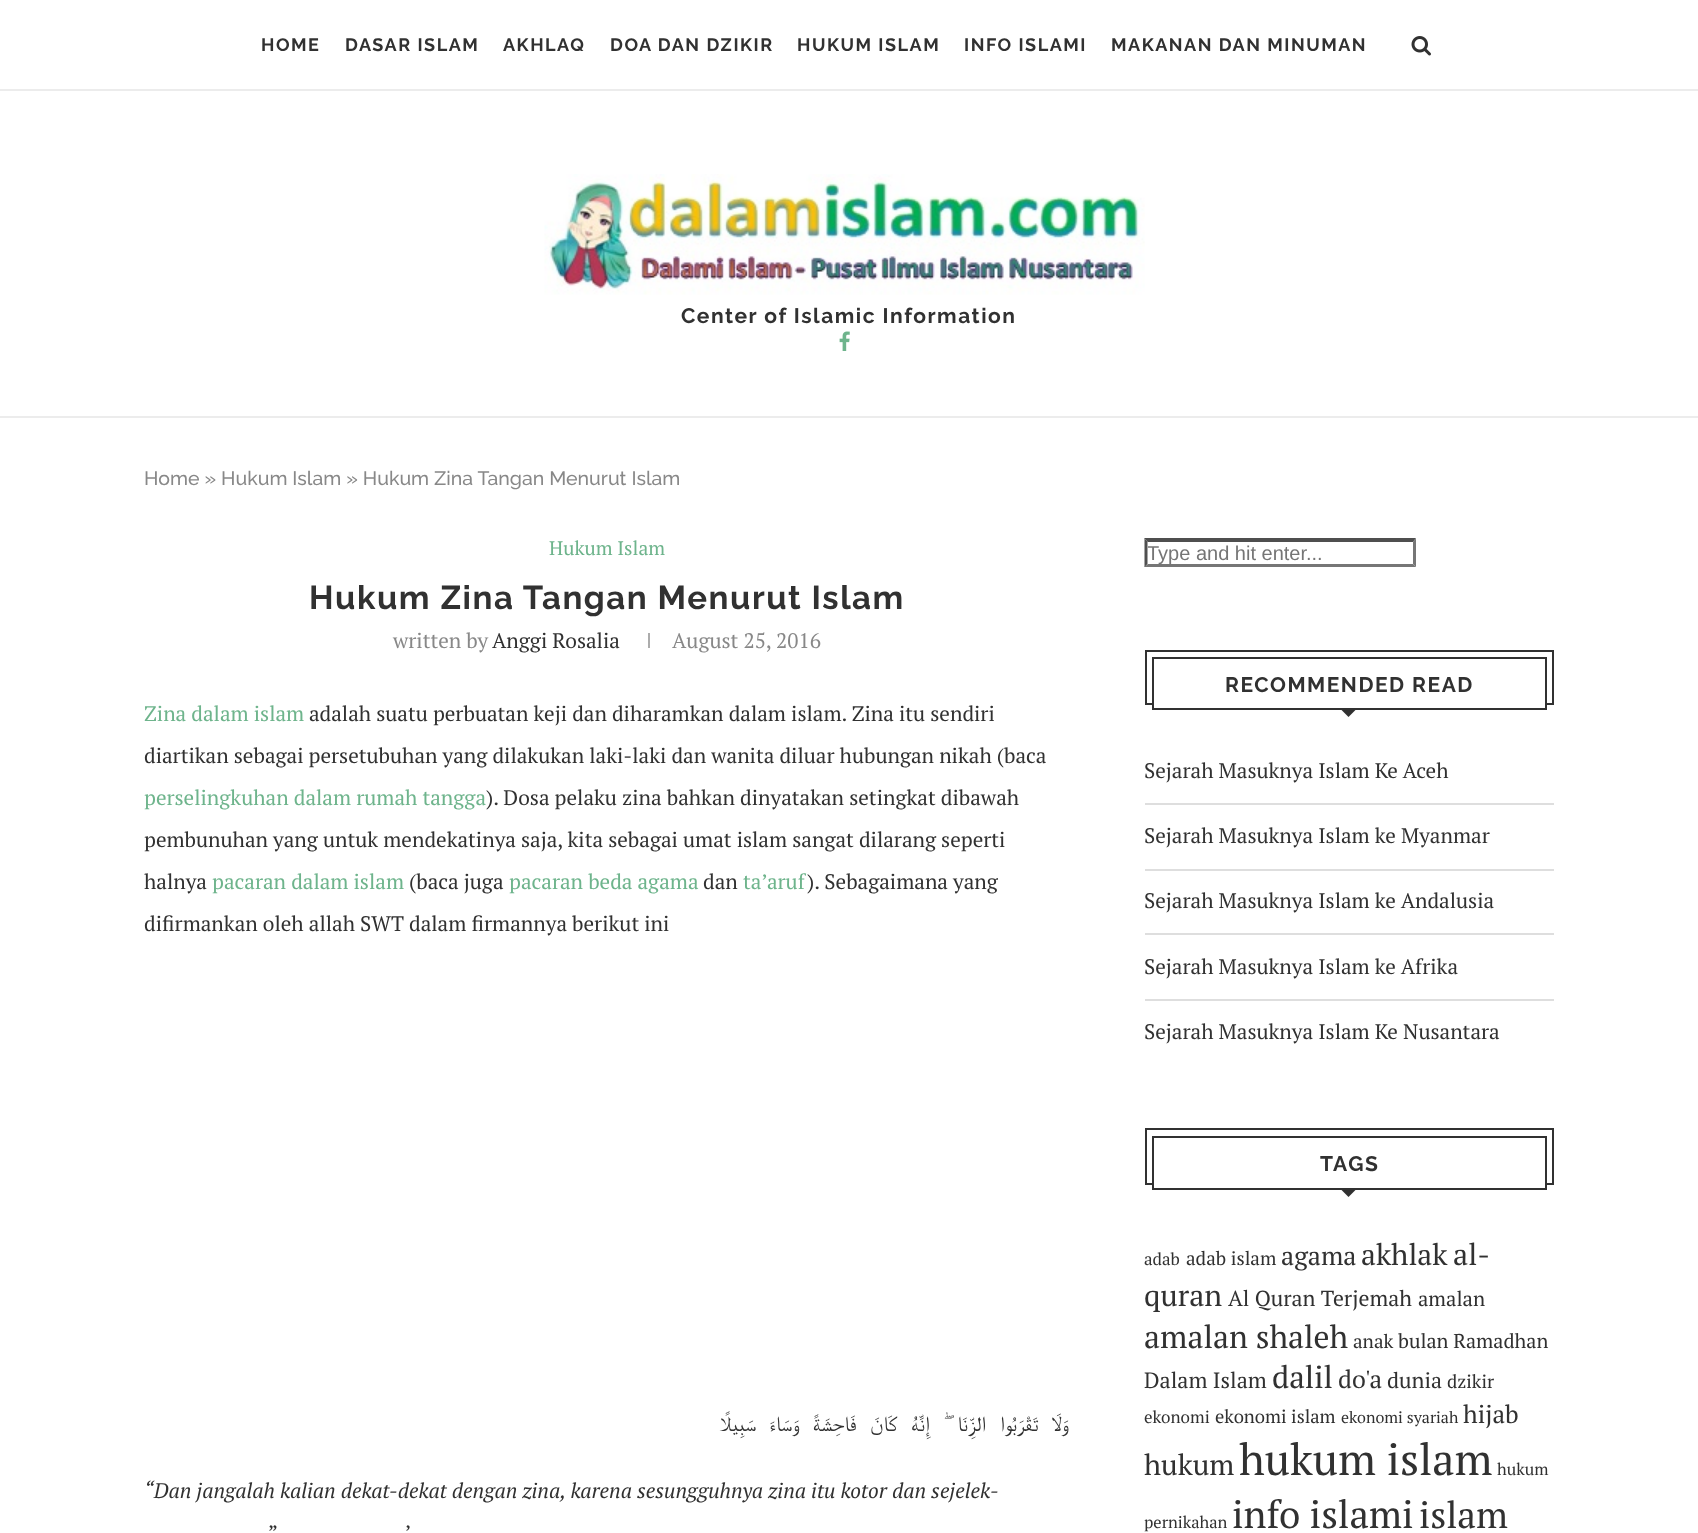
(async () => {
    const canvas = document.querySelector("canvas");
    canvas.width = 1698;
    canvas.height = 1533;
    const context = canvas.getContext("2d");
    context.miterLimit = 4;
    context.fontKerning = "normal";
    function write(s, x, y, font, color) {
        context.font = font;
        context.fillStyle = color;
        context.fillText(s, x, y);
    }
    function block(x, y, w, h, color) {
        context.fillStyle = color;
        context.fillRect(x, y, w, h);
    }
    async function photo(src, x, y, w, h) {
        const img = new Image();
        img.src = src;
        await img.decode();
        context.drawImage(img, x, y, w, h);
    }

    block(0, 0, 1698, 1533, "rgb(255, 255, 255)");
    block(0, 89, 1698, 2, "rgb(236, 236, 236)");
    context.letterSpacing = "1.5px";
    write("HOME", 261, 51, "bold 18px Raleway", "rgb(49, 49, 49)");
    write("DASAR ISLAM", 345, 51, "bold 18px Raleway", "rgb(49, 49, 49)");
    write("AKHLAQ", 503, 51, "bold 18px Raleway", "rgb(49, 49, 49)");
    write("DOA DAN DZIKIR", 610, 51, "bold 18px Raleway", "rgb(49, 49, 49)");
    write("HUKUM ISLAM", 797, 51, "bold 18px Raleway", "rgb(49, 49, 49)");
    write("INFO ISLAMI", 964, 51, "bold 18px Raleway", "rgb(49, 49, 49)");
    write("MAKANAN DAN MINUMAN", 1111, 51, "bold 18px Raleway", "rgb(49, 49, 49)");
    await photo("media/1.png", 1411, 36, 20, 20);
    block(0, 416, 1698, 2, "rgb(236, 236, 236)");
    await photo("media/2.png", 544, 174, 601, 121);
    write("Center of Islamic Information", 681, 323, "bold 21px Raleway", "rgb(49, 49, 49)");
    await photo("media/3.png", 839, 331, 11, 20);
    context.letterSpacing = "0px";
    write("Home » Hukum Islam » Hukum Zina Tangan Menurut Islam", 144, 485, "500 19.5px Raleway", "rgb(136, 136, 136)");
    write("Hukum Islam", 549, 555, "19.5px PT Serif", "rgb(110, 180, 140)");
    context.letterSpacing = "1.5px";
    write("Hukum Zina Tangan Menurut Islam", 309, 609, "bold 33px Raleway", "rgb(49, 49, 49)");
    context.letterSpacing = "0px";
    write("written by", 393, 648, "21px PT Serif", "rgb(136, 136, 136)");
    write("Anggi Rosalia", 492, 648, "21px PT Serif", "rgb(49, 49, 49)");
    block(648, 633, 2, 15, "rgb(172, 172, 172)");
    write("August 25, 2016", 672, 648, "21px PT Serif", "rgb(136, 136, 136)");
    write("Zina dalam islam", 144, 721, "21px PT Serif", "rgb(110, 180, 140)");
    write("adalah suatu perbuatan keji dan diharamkan dalam islam. Zina itu sendiri", 309, 721, "21px PT Serif", "rgb(49, 49, 49)");
    write("diartikan sebagai persetubuhan yang dilakukan laki-laki dan wanita diluar hubungan nikah (baca", 144, 763, "21px PT Serif", "rgb(49, 49, 49)");
    write("perselingkuhan dalam rumah tangga", 144, 805, "21px PT Serif", "rgb(110, 180, 140)");
    write("). Dosa pelaku zina bahkan dinyatakan setingkat dibawah", 486, 805, "21px PT Serif", "rgb(49, 49, 49)");
    write("pembunuhan yang untuk mendekatinya saja, kita sebagai umat islam sangat dilarang seperti", 144, 847, "21px PT Serif", "rgb(49, 49, 49)");
    write("halnya", 144, 889, "21px PT Serif", "rgb(49, 49, 49)");
    write("pacaran dalam islam", 212, 889, "21px PT Serif", "rgb(110, 180, 140)");
    write("(baca juga", 409, 889, "21px PT Serif", "rgb(49, 49, 49)");
    write("pacaran beda agama", 509, 889, "21px PT Serif", "rgb(110, 180, 140)");
    write("dan", 703, 889, "21px PT Serif", "rgb(49, 49, 49)");
    write("ta’aruf", 743, 889, "21px PT Serif", "rgb(110, 180, 140)");
    write("). Sebagaimana yang", 807, 889, "21px PT Serif", "rgb(49, 49, 49)");
    write("difirmankan oleh allah SWT dalam firmannya berikut ini", 144, 931, "21px PT Serif", "rgb(49, 49, 49)");
    context.wordSpacing = "8.5px";
    context.direction = "rtl";
    write("وَلَا تَقْرَبُوا الزِّنَا ۖ إِنَّهُ كَانَ فَاحِشَةً وَسَاءَ سَبِيلًا", 1069, 1431, "21px FreeSerif", "rgb(49, 49, 49)");
    context.wordSpacing = "0px";
    context.direction = "ltr";
    write("“Dan jangalah kalian dekat-dekat dengan zina, karena sesungguhnya zina itu kotor dan sejelek-", 144, 1498, "italic 21px PT Serif", "rgb(49, 49, 49)");
    write("”", 268, 1540, "21px PT Serif", "rgb(49, 49, 49)");
    write("’", 405, 1540, "21px PT Serif", "rgb(49, 49, 49)");
    context.fillStyle = "rgb(79, 79, 79)";
    context.beginPath();
    context.moveTo(1144, 538);
    context.lineTo(1416, 538);
    context.lineTo(1413, 542);
    context.lineTo(1148, 542);
    context.closePath();
    context.fill();
    context.fillStyle = "rgb(118, 118, 118)";
    context.beginPath();
    context.moveTo(1416, 538.5);
    context.lineTo(1416, 567);
    context.lineTo(1413, 564);
    context.lineTo(1413, 541.5);
    context.closePath();
    context.fill();
    context.beginPath();
    context.moveTo(1416, 567);
    context.lineTo(1144, 567);
    context.lineTo(1148, 564);
    context.lineTo(1413, 564);
    context.closePath();
    context.fill();
    context.fillStyle = "rgb(79, 79, 79)";
    context.beginPath();
    context.moveTo(1144.5, 567);
    context.lineTo(1144.5, 538.5);
    context.lineTo(1147.5, 541.5);
    context.lineTo(1147.5, 564);
    context.closePath();
    context.fill();
    context.save();
    context.beginPath();
    context.rect(1148, 542, 265, 22);
    context.clip();
    write("Type and hit enter...", 1147, 560, "20px Liberation Sans", "rgb(117, 117, 117)");
    context.restore();
    context.strokeStyle = "rgb(49, 49, 49)";
    context.lineWidth = 2;
    context.strokeRect(1146, 651, 407, 53);
    block(1154, 703, 391, 2, "rgb(255, 255, 255)");
    context.strokeRect(1153, 658, 393, 51);
    context.letterSpacing = "1.5px";
    write("RECOMMENDED READ", 1225, 692, "bold 21px Raleway", "rgb(49, 49, 49)");
    context.beginPath();
    context.moveTo(1339.5, 708);
    context.lineTo(1357.5, 708);
    context.lineTo(1348.5, 717);
    context.closePath();
    context.fill();
    block(1145, 803, 409, 2, "rgb(222, 222, 222)");
    context.letterSpacing = "0px";
    write("Sejarah Masuknya Islam Ke Aceh", 1144, 778, "21px PT Serif", "rgb(49, 49, 49)");
    block(1145, 869, 409, 2, "rgb(222, 222, 222)");
    write("Sejarah Masuknya Islam ke Myanmar", 1144, 843, "21px PT Serif", "rgb(49, 49, 49)");
    block(1145, 933, 409, 2, "rgb(222, 222, 222)");
    write("Sejarah Masuknya Islam ke Andalusia", 1144, 908, "21px PT Serif", "rgb(49, 49, 49)");
    block(1145, 999, 409, 2, "rgb(222, 222, 222)");
    write("Sejarah Masuknya Islam ke Afrika", 1144, 974, "21px PT Serif", "rgb(49, 49, 49)");
    write("Sejarah Masuknya Islam Ke Nusantara", 1144, 1039, "21px PT Serif", "rgb(49, 49, 49)");
    context.strokeRect(1146, 1129, 407, 55);
    block(1154, 1183, 391, 2, "rgb(255, 255, 255)");
    context.strokeRect(1153, 1137, 393, 52);
    context.letterSpacing = "1.5px";
    write("TAGS", 1320, 1171, "bold 21px Raleway", "rgb(49, 49, 49)");
    context.beginPath();
    context.moveTo(1339.5, 1188);
    context.lineTo(1357.5, 1188);
    context.lineTo(1348.5, 1197);
    context.closePath();
    context.fill();
    context.letterSpacing = "0px";
    write("adab", 1144, 1265, "17px PT Serif", "rgb(49, 49, 49)");
    write("adab islam", 1186, 1265, "19px PT Serif", "rgb(49, 49, 49)");
    write("agama", 1281, 1265, "26px PT Serif", "rgb(49, 49, 49)");
    write("akhlak", 1361, 1265, "29.5px PT Serif", "rgb(49, 49, 49)");
    write("al-", 1453, 1265, "30px PT Serif", "rgb(49, 49, 49)");
    write("quran", 1144, 1306, "30px PT Serif", "rgb(49, 49, 49)");
    write("Al Quran Terjemah", 1228, 1306, "21.75px PT Serif", "rgb(49, 49, 49)");
    write("amalan", 1418, 1306, "20.5px PT Serif", "rgb(49, 49, 49)");
    write("amalan shaleh", 1144, 1348, "31.75px PT Serif", "rgb(49, 49, 49)");
    write("anak", 1353, 1348, "19px PT Serif", "rgb(49, 49, 49)");
    write("bulan Ramadhan", 1398, 1348, "20px PT Serif", "rgb(49, 49, 49)");
    write("Dalam Islam", 1144, 1388, "22px PT Serif", "rgb(49, 49, 49)");
    write("dalil", 1272, 1388, "31px PT Serif", "rgb(49, 49, 49)");
    write("do'a", 1338, 1388, "25px PT Serif", "rgb(49, 49, 49)");
    write("dunia", 1387, 1388, "21.75px PT Serif", "rgb(49, 49, 49)");
    write("dzikir", 1447, 1388, "18.5px PT Serif", "rgb(49, 49, 49)");
    write("ekonomi", 1144, 1423, "17px PT Serif", "rgb(49, 49, 49)");
    write("ekonomi islam", 1215, 1423, "18.5px PT Serif", "rgb(49, 49, 49)");
    write("ekonomi syariah", 1341, 1423, "16px PT Serif", "rgb(49, 49, 49)");
    write("hijab", 1463, 1423, "25px PT Serif", "rgb(49, 49, 49)");
    write("hukum", 1144, 1475, "29px PT Serif", "rgb(49, 49, 49)");
    write("hukum islam", 1239, 1475, "44px PT Serif", "rgb(49, 49, 49)");
    write("hukum", 1497, 1475, "16.5px PT Serif", "rgb(49, 49, 49)");
    write("pernikahan", 1144, 1528, "16.5px PT Serif", "rgb(49, 49, 49)");
    write("info islami", 1232, 1528, "38.5px PT Serif", "rgb(49, 49, 49)");
    write("islam", 1419, 1528, "37px PT Serif", "rgb(49, 49, 49)");
})();
